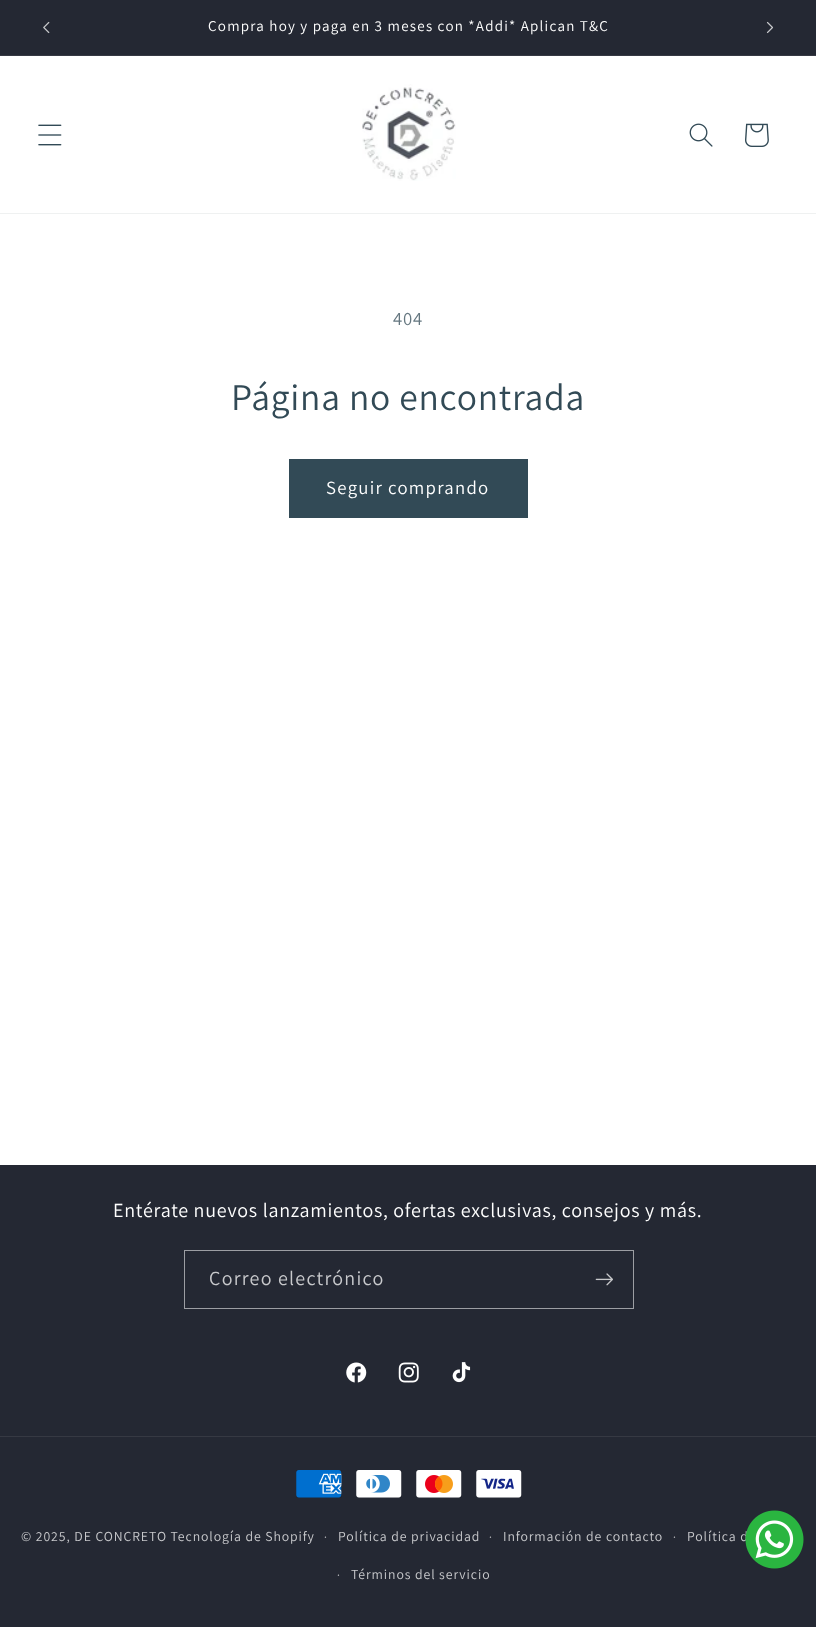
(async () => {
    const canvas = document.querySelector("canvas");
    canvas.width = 816;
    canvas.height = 1627;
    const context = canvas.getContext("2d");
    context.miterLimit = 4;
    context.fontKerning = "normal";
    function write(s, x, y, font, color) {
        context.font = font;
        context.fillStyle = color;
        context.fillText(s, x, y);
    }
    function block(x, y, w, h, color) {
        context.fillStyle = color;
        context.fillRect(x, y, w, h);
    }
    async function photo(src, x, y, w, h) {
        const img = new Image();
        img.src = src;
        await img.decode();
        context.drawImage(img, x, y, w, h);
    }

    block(0, 0, 816, 1627, "rgb(255, 255, 255)");
    block(0, 0, 816, 55, "rgb(36, 40, 51)");
    block(0, 55, 816, 1, "rgb(54, 57, 67)");
    await photo("media/1.png", 43, 21, 7, 13);
    context.letterSpacing = "1.25px";
    write("Compra hoy y paga en 3 meses con *Addi* Aplican T&C", 208, 31, "15px Assistant", "rgb(255, 255, 255)");
    await photo("media/2.png", 766, 21, 8, 13);
    block(0, 213, 816, 1, "rgb(239, 241, 241)");
    await photo("media/3.png", 38, 124, 24, 22);
    await photo("media/4.png", 362, 84, 94, 97);
    await photo("media/5.png", 689, 123, 24, 24);
    await photo("media/6.png", 745, 123, 24, 24);
    context.letterSpacing = "0.75px";
    write("404", 393, 325, "18.75px Assistant", "rgb(101, 119, 128)");
    write("Página no encontrada", 231, 410, "37.5px Assistant", "rgb(50, 74, 86)");
    block(289, 459, 239, 59, "rgb(50, 74, 86)");
    context.letterSpacing = "1.25px";
    write("Seguir comprando", 326, 494, "18.75px Assistant", "rgb(255, 255, 255)");
    block(0, 1165, 816, 462, "rgb(36, 40, 51)");
    context.letterSpacing = "0.75px";
    write("Entérate nuevos lanzamientos, ofertas exclusivas, consejos y más.", 113, 1217, "20px Assistant", "rgb(255, 255, 255)");
    context.strokeStyle = "rgb(156, 158, 163)";
    context.strokeRect(184.5, 1250.5, 449, 58);
    context.letterSpacing = "1.25px";
    write("Correo electrónico", 209, 1285, "20px Assistant", "rgb(200, 201, 204)");
    await photo("media/7.png", 595, 1273, 18, 13);
    await photo("media/8.png", 346, 1362, 21, 21);
    await photo("media/9.png", 398, 1362, 21, 21);
    await photo("media/10.png", 452, 1362, 19, 21);
    block(0, 1436, 816, 1, "rgb(54, 57, 67)");
    await photo("media/11.png", 296, 1470, 46, 28);
    await photo("media/12.png", 356, 1470, 46, 28);
    await photo("media/13.png", 416, 1470, 46, 28);
    await photo("media/14.png", 476, 1470, 46, 28);
    context.letterSpacing = "0.9px";
    write("© 2025, DE CONCRETO Tecnología de Shopify", 21, 1541, "13.75px Assistant", "rgb(200, 201, 204)");
    write("·", 324, 1541, "12px Assistant", "rgb(200, 201, 204)");
    write("Política de privacidad", 338, 1541, "13.75px Assistant", "rgb(200, 201, 204)");
    write("·", 489, 1541, "12px Assistant", "rgb(200, 201, 204)");
    write("Información de contacto", 503, 1541, "13.75px Assistant", "rgb(200, 201, 204)");
    write("·", 673, 1541, "12px Assistant", "rgb(200, 201, 204)");
    write("Política d", 687, 1541, "13.75px Assistant", "rgb(200, 201, 204)");
    write("·", 337, 1579, "12px Assistant", "rgb(200, 201, 204)");
    write("Términos del servicio", 351, 1579, "13.75px Assistant", "rgb(200, 201, 204)");
    await photo("media/15.png", 745, 1510, 59, 59);
})();
